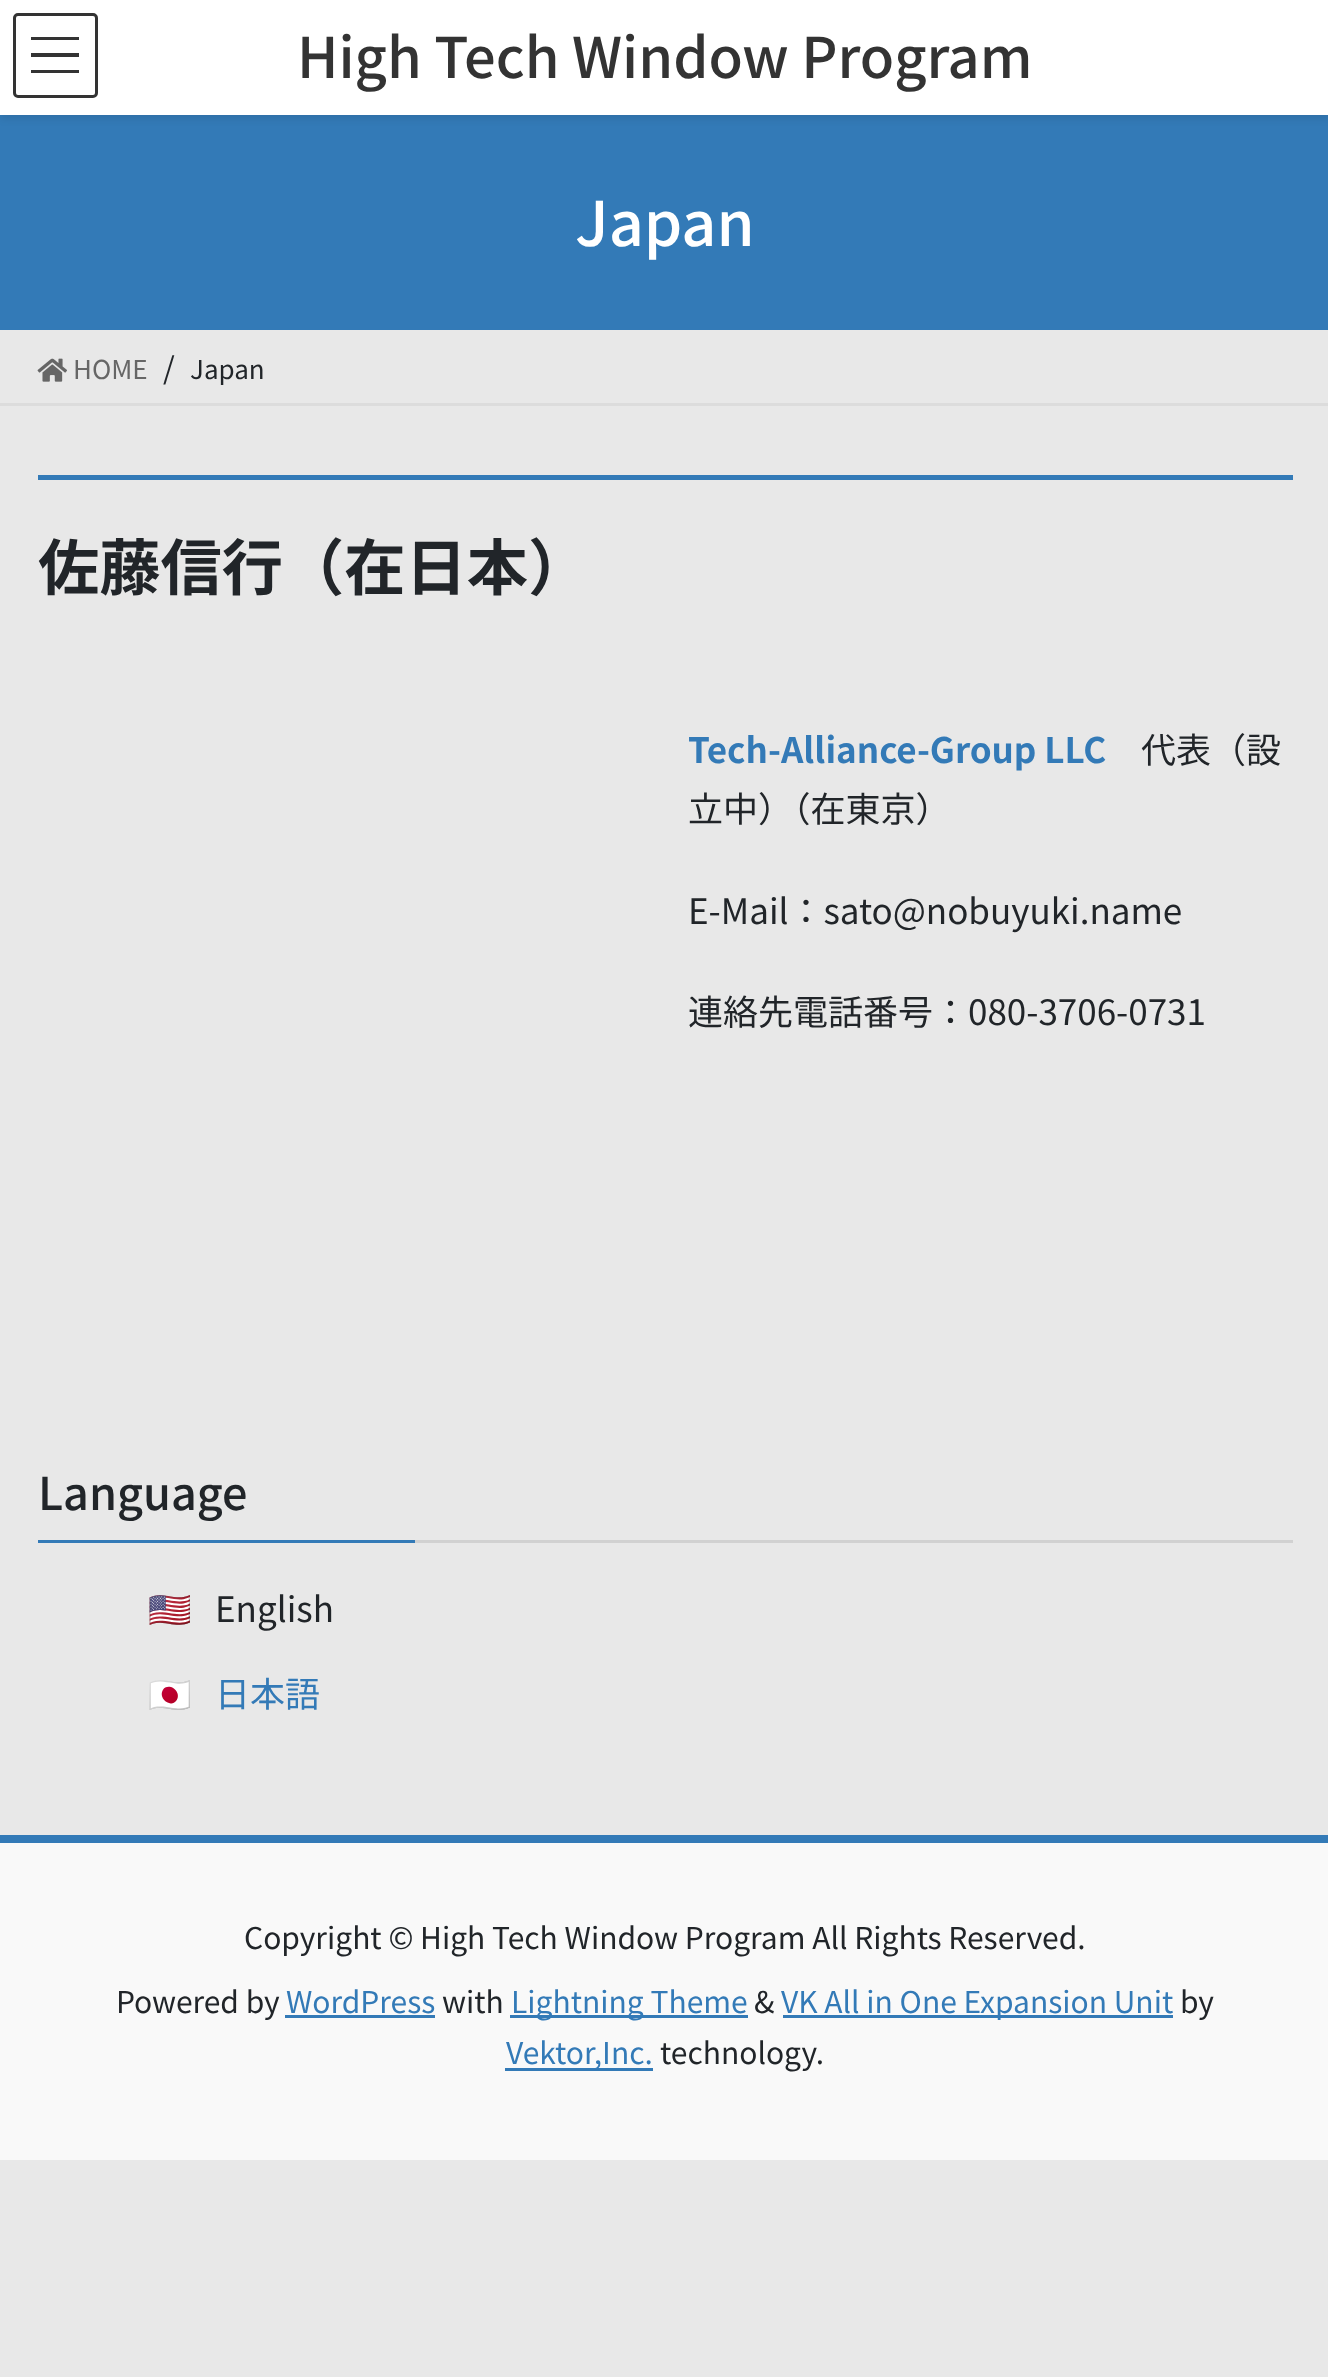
(async () => {
    const canvas = document.querySelector("canvas");
    canvas.width = 1328;
    canvas.height = 2377;
    const context = canvas.getContext("2d");
    context.miterLimit = 4;
    context.fontKerning = "normal";
    function write(s, x, y, font, color) {
        context.font = font;
        context.fillStyle = color;
        context.fillText(s, x, y);
    }
    function block(x, y, w, h, color) {
        context.fillStyle = color;
        context.fillRect(x, y, w, h);
    }
    async function photo(src, x, y, w, h) {
        const img = new Image();
        img.src = src;
        await img.decode();
        context.drawImage(img, x, y, w, h);
    }

    block(0, 0, 1328, 2377, "rgb(232, 232, 232)");
    block(0, 115, 1328, 215, "rgb(51, 122, 183)");
    context.fillStyle = "rgba(0, 0, 0, 0.1)";
    context.filter = "blur(4px)";
    context.beginPath();
    context.rect(0, 3, 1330, 115);
    context.fill();
    context.filter = "none";
    block(0, 0, 1328, 115, "rgb(255, 255, 255)");
    block(31, 37, 48, 3, "rgb(51, 51, 51)");
    block(31, 53, 48, 4, "rgb(51, 51, 51)");
    block(31, 70, 48, 3, "rgb(51, 51, 51)");
    context.beginPath();
    context.roundRect(14.5, 14.5, 82, 82, 3.5);
    context.strokeStyle = "rgb(51, 51, 51)";
    context.lineWidth = 3;
    context.stroke();
    write("High Tech Window Program", 297, 78, "500 56px Noto Sans JP", "rgb(51, 51, 51)");
    write("Japan", 575, 246, "500 61.25px Noto Sans JP", "rgb(255, 255, 255)");
    block(0, 403, 1328, 3, "rgb(220, 220, 220)");
    await photo("media/1.png", 37, 358, 30, 24);
    write("HOME", 73, 379, "26px Noto Sans JP", "rgb(102, 102, 102)");
    write("/", 163, 379, "30px Noto Sans JP", "rgb(33, 37, 41)");
    write("Japan", 190, 379, "26px Noto Sans JP", "rgb(33, 37, 41)");
    block(38, 475, 1255, 5, "rgb(51, 122, 183)");
    write("佐藤信行（在日本）", 38, 590, "bold 61.25px Noto Sans JP", "rgb(33, 37, 41)");
    write("Tech-Alliance-Group LLC", 688, 763, "bold 35px Noto Sans JP", "rgb(51, 122, 183)");
    write("代表（設", 1141, 763, "35px Noto Sans JP", "rgb(33, 37, 41)");
    write("立中）（在東京）", 688, 822, "35px Noto Sans JP", "rgb(33, 37, 41)");
    write("E-Mail：sato@nobuyuki.name", 688, 924, "35px Noto Sans JP", "rgb(33, 37, 41)");
    write("連絡先電話番号：080-3706-0731", 688, 1025, "35px Noto Sans JP", "rgb(33, 37, 41)");
    block(415, 1540, 878, 3, "rgb(209, 209, 209)");
    write("Language", 38, 1510, "500 45px Noto Sans JP", "rgb(33, 37, 41)");
    block(38, 1540, 377, 3, "rgb(51, 122, 183)");
    write("🇺🇸", 148, 1622, "35px Noto Color Emoji", "rgb(33, 37, 41)");
    write("English", 215, 1622, "35px Noto Sans JP", "rgb(33, 37, 41)");
    write("🇯🇵", 148, 1707, "35px Noto Color Emoji", "rgb(33, 37, 41)");
    write("日本語", 215, 1707, "35px Noto Sans JP", "rgb(51, 122, 183)");
    block(0, 1843, 1328, 317, "rgb(249, 249, 249)");
    block(0, 1835, 1328, 8, "rgb(51, 122, 183)");
    write("Copyright © High Tech Window Program All Rights Reserved.", 244, 1949, "30px Noto Sans JP", "rgb(33, 37, 41)");
    write("Powered by", 116, 2013, "30px Noto Sans JP", "rgb(33, 37, 41)");
    write("WordPress", 286, 2013, "30px Noto Sans JP", "rgb(51, 122, 183)");
    block(285, 2015, 150, 3, "rgb(51, 122, 183)");
    write("with", 442, 2013, "30px Noto Sans JP", "rgb(33, 37, 41)");
    block(510, 2015, 238, 3, "rgb(51, 122, 183)");
    write("Lightning Theme", 511, 2013, "30px Noto Sans JP", "rgb(51, 122, 183)");
    write("&", 754, 2013, "30px Noto Sans JP", "rgb(33, 37, 41)");
    block(783, 2015, 390, 3, "rgb(51, 122, 183)");
    write("VK All in One Expansion Unit", 781, 2013, "30px Noto Sans JP", "rgb(51, 122, 183)");
    write("by", 1180, 2013, "30px Noto Sans JP", "rgb(33, 37, 41)");
    block(505, 2068, 148, 3, "rgb(51, 122, 183)");
    write("Vektor,Inc.", 506, 2064, "30px Noto Sans JP", "rgb(51, 122, 183)");
    write("technology.", 660, 2064, "30px Noto Sans JP", "rgb(33, 37, 41)");
})();
